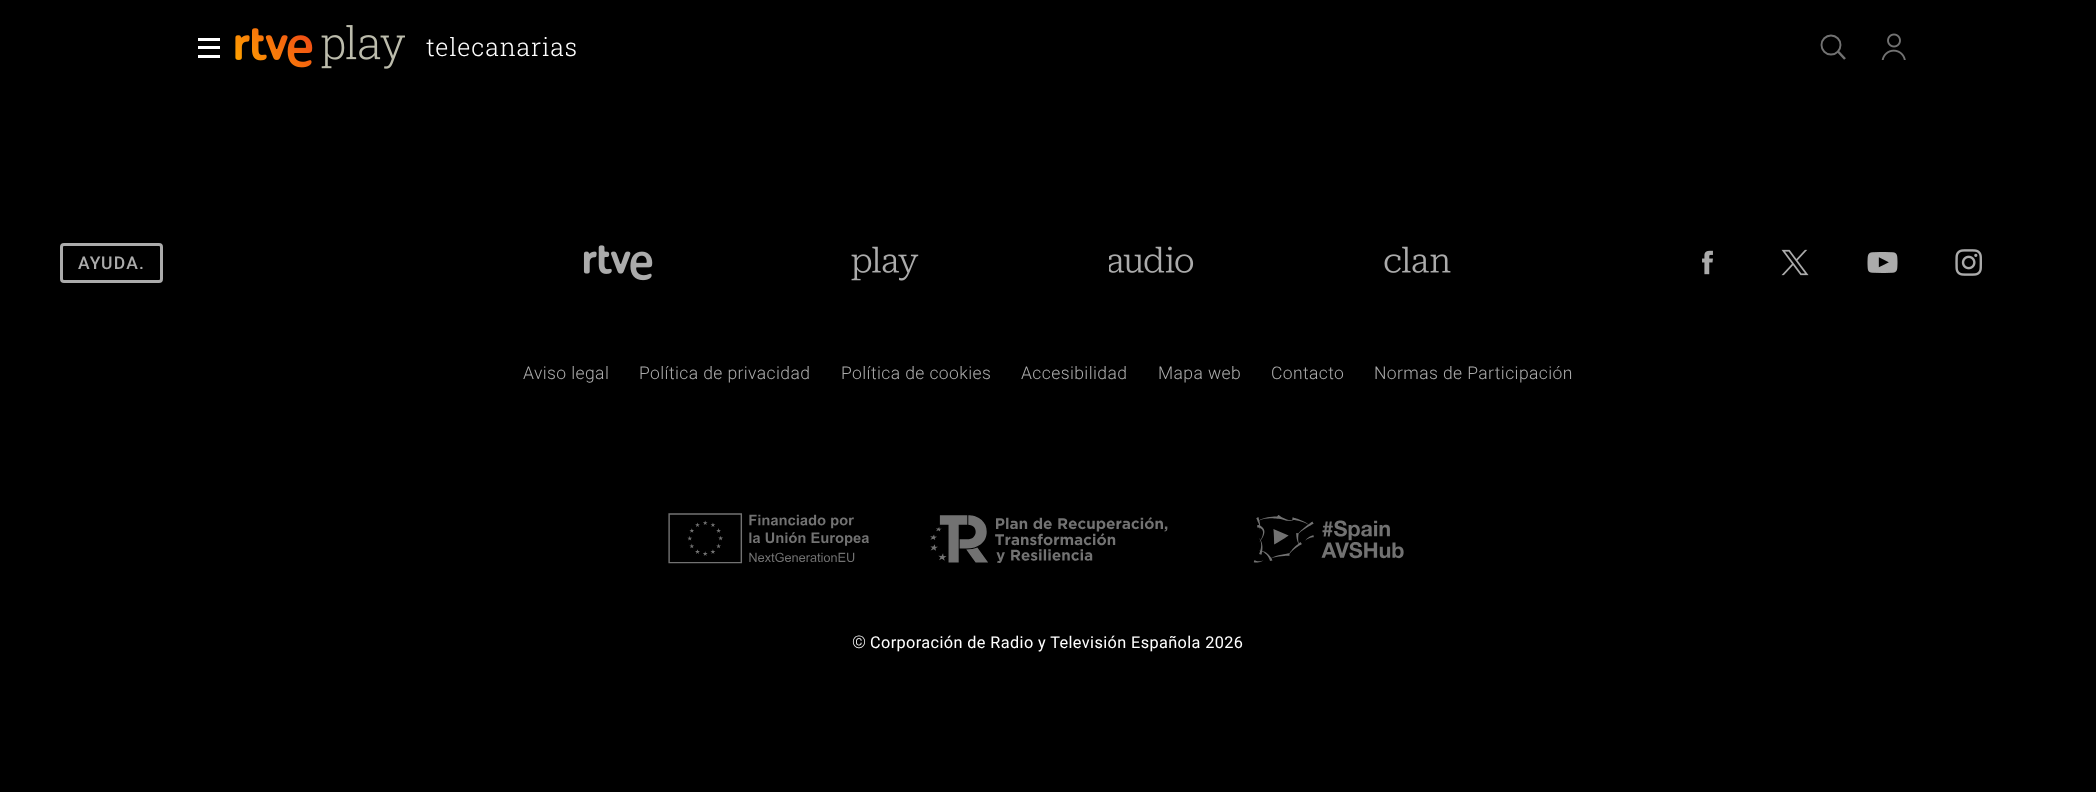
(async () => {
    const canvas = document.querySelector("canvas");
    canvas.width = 2096;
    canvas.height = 792;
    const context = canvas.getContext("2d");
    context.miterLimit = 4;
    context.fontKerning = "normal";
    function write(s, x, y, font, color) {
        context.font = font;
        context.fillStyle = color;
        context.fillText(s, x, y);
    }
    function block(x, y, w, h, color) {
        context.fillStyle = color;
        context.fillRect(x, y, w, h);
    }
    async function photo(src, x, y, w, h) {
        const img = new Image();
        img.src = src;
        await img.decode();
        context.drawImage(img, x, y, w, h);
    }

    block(0, 0, 2096, 792, "rgb(0, 0, 0)");
    block(198, 38, 22, 3, "rgb(255, 255, 255)");
    block(198, 46, 22, 3, "rgb(255, 255, 255)");
    block(198, 55, 22, 3, "rgb(255, 255, 255)");
    await photo("media/1.png", 235, 28, 78, 40);
    await photo("media/2.png", 321, 25, 84, 44);
    context.letterSpacing = "0.75px";
    write("telecanarias", 426, 56, "300 25px Roboto Slab", "rgb(255, 255, 255)");
    context.beginPath();
    context.arc(1831, 45, 9.5, 0, Math.PI * 2);
    context.strokeStyle = "rgb(114, 114, 114)";
    context.lineWidth = 1.9;
    context.stroke();
    context.beginPath();
    context.moveTo(1838, 51.5);
    context.lineTo(1845, 59);
    context.lineWidth = 2.5;
    context.stroke();
    await photo("media/3.png", 1881, 33, 25, 27);
    context.beginPath();
    context.roundRect(61.5, 244.5, 100, 37, 2.5);
    context.strokeStyle = "rgb(171, 171, 171)";
    context.lineWidth = 3;
    context.stroke();
    context.letterSpacing = "1.25px";
    write("AYUDA.", 78, 269, "500 17.5px Roboto", "rgb(171, 171, 171)");
    await photo("media/4.png", 583, 245, 70, 36);
    await photo("media/5.png", 851, 246, 68, 35);
    await photo("media/6.png", 1109, 246, 85, 27);
    await photo("media/7.png", 1384, 246, 67, 27);
    await photo("media/8.png", 1702, 250, 11, 25);
    await photo("media/9.png", 1781, 249, 28, 27);
    await photo("media/10.png", 1867, 252, 31, 21);
    await photo("media/11.png", 1955, 249, 27, 27);
    context.letterSpacing = "0.4px";
    write("Aviso legal", 523, 379, "300 17.5px Roboto", "rgb(171, 171, 171)");
    write("Política de privacidad", 639, 379, "300 17.5px Roboto", "rgb(171, 171, 171)");
    write("Política de cookies", 841, 379, "300 17.5px Roboto", "rgb(171, 171, 171)");
    write("Accesibilidad", 1021, 379, "300 17.5px Roboto", "rgb(171, 171, 171)");
    write("Mapa web", 1158, 379, "300 17.5px Roboto", "rgb(171, 171, 171)");
    write("Contacto", 1271, 379, "300 17.5px Roboto", "rgb(171, 171, 171)");
    write("Normas de Participación", 1374, 379, "300 17.5px Roboto", "rgb(171, 171, 171)");
    await photo("media/12.png", 668, 513, 201, 51);
    await photo("media/13.png", 930, 515, 238, 48);
    await photo("media/14.png", 1253, 515, 151, 48);
    write("©", 852, 648, "300 17.5px Roboto", "rgb(255, 255, 255)");
    write("Corporación de Radio y Televisión Española 2026", 870, 648, "16.25px Roboto", "rgb(255, 255, 255)");
})();
